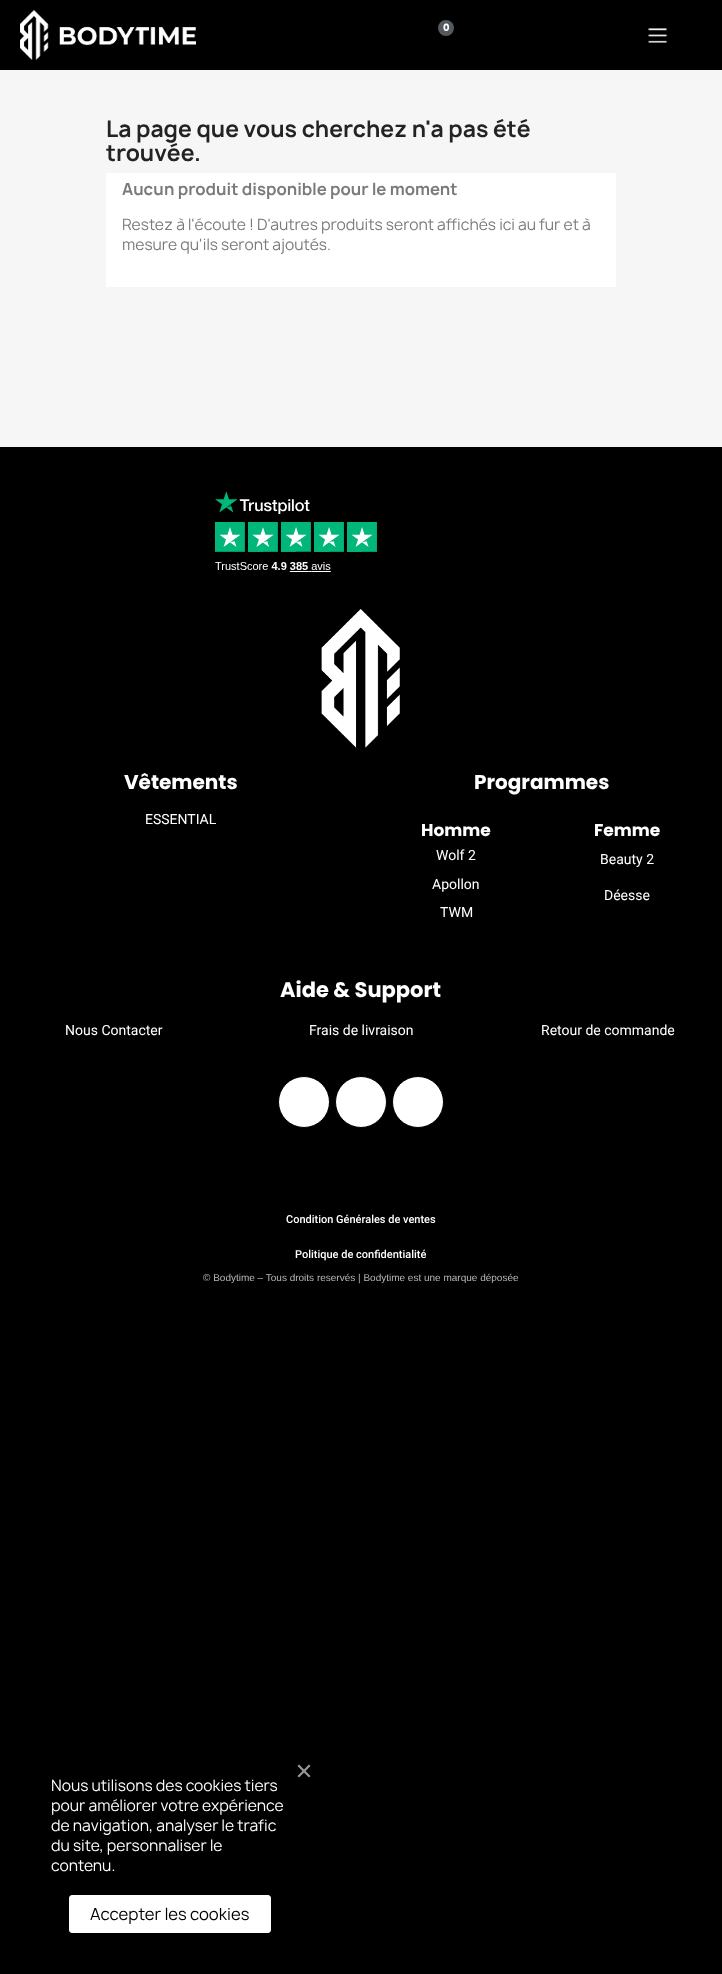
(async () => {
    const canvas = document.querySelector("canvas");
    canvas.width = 722;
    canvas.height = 1974;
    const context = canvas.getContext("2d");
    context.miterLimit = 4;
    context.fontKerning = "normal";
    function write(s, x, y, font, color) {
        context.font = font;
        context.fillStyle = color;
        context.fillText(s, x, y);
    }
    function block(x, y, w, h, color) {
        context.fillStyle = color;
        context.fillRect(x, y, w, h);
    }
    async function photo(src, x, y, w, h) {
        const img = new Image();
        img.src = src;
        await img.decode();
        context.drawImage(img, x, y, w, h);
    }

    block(0, 0, 722, 1974, "rgb(0, 0, 0)");
    await photo("media/1.png", 20, 10, 176, 50);
    context.fillStyle = "rgb(84, 89, 95)";
    context.beginPath();
    context.arc(446, 28, 8, 0, Math.PI * 2);
    context.fill();
    write("0", 443, 31, "bold 10px Poppins", "rgb(255, 255, 255)");
    await photo("media/2.png", 648, 28, 20, 15);
    block(0, 70, 722, 377, "rgb(246, 246, 246)");
    write("La page que vous cherchez n'a pas été", 106, 137, "bold 22px Manrope", "rgb(35, 35, 35)");
    write("trouvée.", 106, 161, "bold 22px Manrope", "rgb(35, 35, 35)");
    block(106, 173, 510, 114, "rgb(255, 255, 255)");
    write("Aucun produit disponible pour le moment", 122, 195, "bold 16px Manrope", "rgb(122, 122, 122)");
    write("Restez à l'écoute ! D'autres produits seront affichés ici au fur et à", 122, 230, "15px Manrope", "rgb(122, 122, 122)");
    write("mesure qu'ils seront ajoutés.", 122, 250, "15px Manrope", "rgb(122, 122, 122)");
    await photo("media/3.png", 215, 491, 162, 81);
    await photo("media/4.png", 321, 609, 79, 139);
    write("Vêtements", 124, 789, "bold 20px Poppins", "rgb(255, 255, 255)");
    write("ESSENTIAL", 145, 824, "14px Roboto", "rgb(255, 255, 255)");
    write("Programmes", 474, 789, "bold 20px Poppins", "rgb(255, 255, 255)");
    write("Homme", 421, 836, "bold 17px Poppins", "rgb(255, 255, 255)");
    write("Wolf 2", 436, 860, "14px Roboto", "rgb(255, 255, 255)");
    write("Apollon", 432, 889, "14px Roboto", "rgb(255, 255, 255)");
    write("TWM", 440, 917, "14px Roboto", "rgb(255, 255, 255)");
    write("Femme", 594, 836, "bold 17px Poppins", "rgb(255, 255, 255)");
    write("Beauty 2", 600, 864, "14px Roboto", "rgb(255, 255, 255)");
    write("Déesse", 604, 900, "14px Roboto", "rgb(255, 255, 255)");
    write("Aide & Support", 280, 997, "bold 21px Poppins", "rgb(255, 255, 255)");
    write("Nous Contacter", 65, 1035, "14px Roboto", "rgb(255, 255, 255)");
    write("Frais de livraison", 309, 1035, "14px Roboto", "rgb(255, 255, 255)");
    write("Retour de commande", 541, 1035, "14px Roboto", "rgb(255, 255, 255)");
    context.beginPath();
    context.arc(304, 1102, 25.5, 0, Math.PI * 2);
    context.fill();
    context.strokeStyle = "rgb(0, 0, 0)";
    context.stroke();
    context.beginPath();
    context.arc(361, 1102, 25.5, 0, Math.PI * 2);
    context.fill();
    context.stroke();
    context.beginPath();
    context.arc(418, 1102, 25.5, 0, Math.PI * 2);
    context.fill();
    context.stroke();
    write("Condition Générales de ventes", 286, 1223, "500 11px Roboto", "rgb(255, 255, 255)");
    write("Politique de confidentialité", 295, 1258, "500 11px Roboto", "rgb(255, 255, 255)");
    write("© Bodytime – Tous droits reservés | Bodytime est une marque déposée", 203, 1281, "10px Liberation Sans", "rgb(183, 183, 183)");
    context.fillStyle = "rgb(153, 153, 153)";
    context.beginPath();
    context.moveTo(297.5, 1776);
    context.lineTo(309, 1764.5);
    context.lineTo(310.5, 1766);
    context.lineTo(299, 1777.5);
    context.closePath();
    context.fill();
    context.beginPath();
    context.moveTo(299, 1764.5);
    context.lineTo(310.5, 1776);
    context.lineTo(309, 1777.5);
    context.lineTo(297.5, 1766);
    context.closePath();
    context.fill();
    write("Nous utilisons des cookies tiers", 51, 1791, "15px Manrope", "rgb(255, 255, 255)");
    write("pour améliorer votre expérience", 51, 1811, "15px Manrope", "rgb(255, 255, 255)");
    write("de navigation, analyser le trafic", 51, 1831, "15px Manrope", "rgb(255, 255, 255)");
    write("du site, personnaliser le", 51, 1851, "15px Manrope", "rgb(255, 255, 255)");
    write("contenu.", 51, 1871, "15px Manrope", "rgb(255, 255, 255)");
    context.beginPath();
    context.roundRect(69.5, 1895.5, 201, 37, 2.5);
    context.fill();
    context.strokeStyle = "rgb(255, 255, 255)";
    context.stroke();
    write("Accepter les cookies", 90, 1920, "16px Manrope", "rgb(0, 0, 0)");
})();
